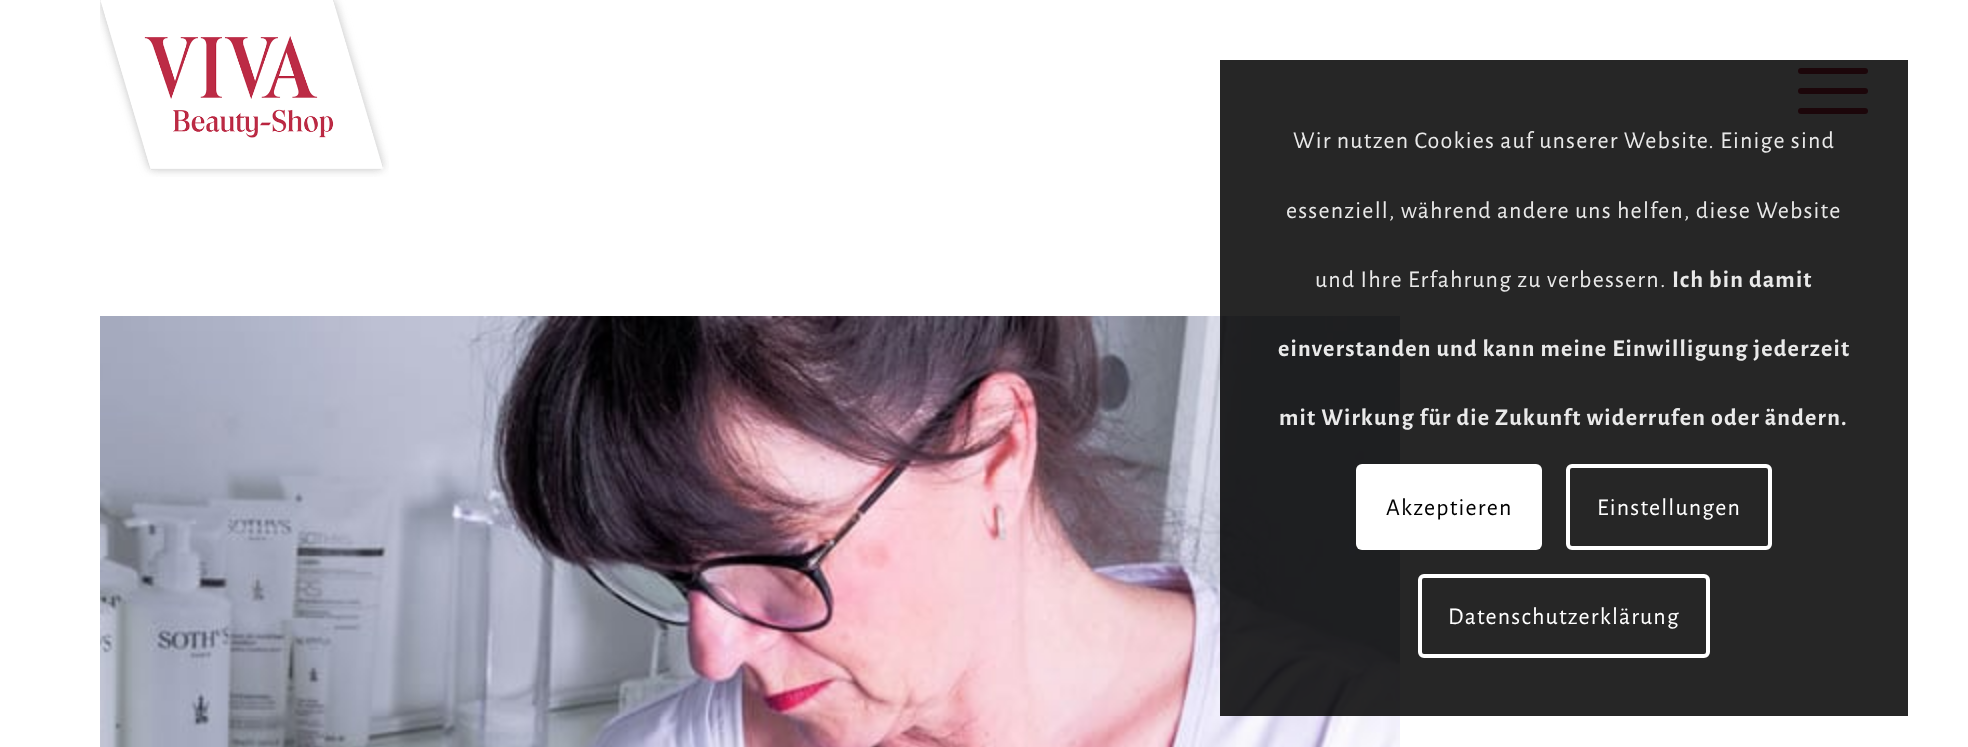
(async () => {
    const canvas = document.querySelector("canvas");
    canvas.width = 1968;
    canvas.height = 747;
    const context = canvas.getContext("2d");
    context.miterLimit = 4;
    context.fontKerning = "normal";
    function write(s, x, y, font, color) {
        context.font = font;
        context.fillStyle = color;
        context.fillText(s, x, y);
    }
    function block(x, y, w, h, color) {
        context.fillStyle = color;
        context.fillRect(x, y, w, h);
    }
    function card(x, y, w, h, r, color) {
        context.fillStyle = color;
        context.beginPath();
        context.roundRect(x, y, w, h, r);
        context.fill();
    }
    async function photo(src, x, y, w, h) {
        const img = new Image();
        img.src = src;
        await img.decode();
        context.drawImage(img, x, y, w, h);
    }

    block(0, 0, 1968, 747, "rgb(255, 255, 255)");
    await photo("media/1.png", 100, 0, 289, 177);
    card(1798, 88, 70, 6, 3, "rgb(188, 43, 69)");
    card(1798, 68, 70, 6, 3, "rgb(188, 43, 69)");
    card(1798, 108, 70, 6, 3, "rgb(188, 43, 69)");
    await photo("media/2.png", 100, 316, 1300, 431);
    block(1220, 60, 688, 656, "rgba(0, 0, 0, 0.85)");
    context.letterSpacing = "1.2px";
    write("Wir nutzen Cookies auf unserer Website. Einige sind", 1293, 148, "24px Alegreya Sans", "rgb(233, 233, 233)");
    write("essenziell, während andere uns helfen, diese Website", 1286, 218, "24px Alegreya Sans", "rgb(233, 233, 233)");
    write("und Ihre Erfahrung zu verbessern.", 1315, 287, "24px Alegreya Sans", "rgb(233, 233, 233)");
    write("Ich bin damit", 1672, 287, "bold 24px Alegreya Sans", "rgb(233, 233, 233)");
    write("einverstanden und kann meine Einwilligung jederzeit", 1278, 356, "bold 24px Alegreya Sans", "rgb(233, 233, 233)");
    write("mit Wirkung für die Zukunft widerrufen oder ändern.", 1279, 425, "bold 24px Alegreya Sans", "rgb(233, 233, 233)");
    card(1356, 464, 186, 86, 6, "rgb(255, 255, 255)");
    write("Akzeptieren", 1386, 515, "24px Alegreya Sans", "rgb(0, 0, 0)");
    context.beginPath();
    context.roundRect(1568, 466, 202, 82, 4);
    context.strokeStyle = "rgb(255, 255, 255)";
    context.lineWidth = 4;
    context.stroke();
    write("Einstellungen", 1597, 515, "24px Alegreya Sans", "rgb(255, 255, 255)");
    context.beginPath();
    context.roundRect(1420, 576, 288, 80, 4);
    context.stroke();
    write("Datenschutzerklärung", 1448, 624, "24px Alegreya Sans", "rgb(255, 255, 255)");
})();
